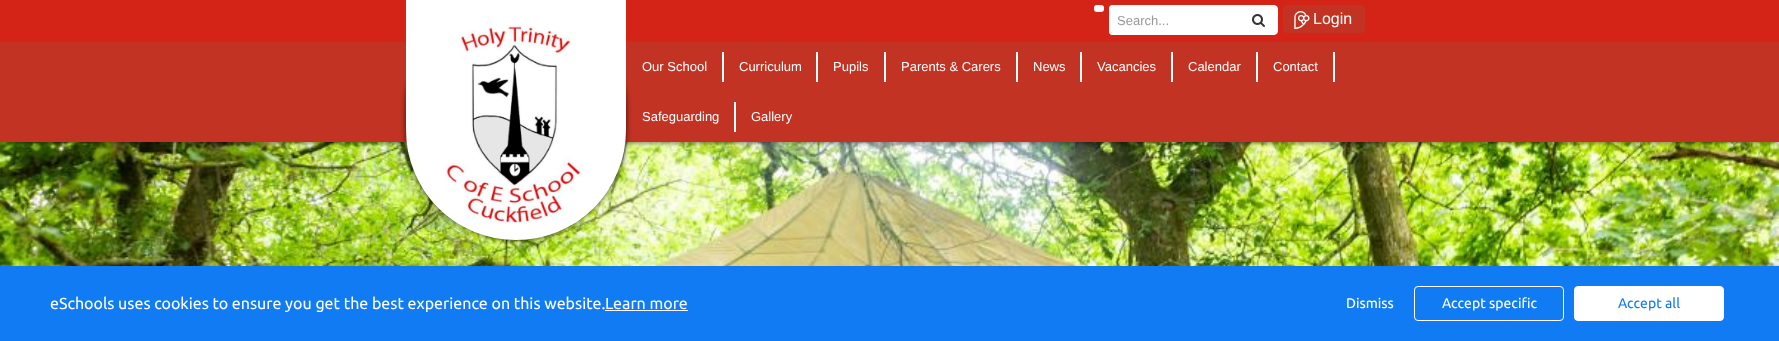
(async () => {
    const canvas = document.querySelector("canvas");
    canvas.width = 1779;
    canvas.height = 341;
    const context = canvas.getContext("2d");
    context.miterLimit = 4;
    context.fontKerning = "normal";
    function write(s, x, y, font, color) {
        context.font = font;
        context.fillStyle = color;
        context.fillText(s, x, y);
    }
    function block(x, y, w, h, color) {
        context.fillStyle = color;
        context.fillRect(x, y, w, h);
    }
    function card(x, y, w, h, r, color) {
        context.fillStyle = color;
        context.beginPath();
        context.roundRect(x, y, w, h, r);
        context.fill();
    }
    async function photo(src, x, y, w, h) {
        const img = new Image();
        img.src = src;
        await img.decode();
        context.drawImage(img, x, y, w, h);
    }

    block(0, 0, 1779, 341, "rgb(255, 255, 255)");
    await photo("media/4.png", 0, 142, 1779, 124);
    context.fillStyle = "rgba(0, 0, 0, 0.5)";
    context.filter = "blur(2.5px)";
    context.beginPath();
    context.rect(-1, 41, 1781, 102);
    context.fill();
    context.filter = "none";
    block(0, 0, 1779, 42, "rgb(212, 36, 23)");
    block(0, 42, 1779, 100, "rgb(194, 51, 35)");
    context.fillStyle = "rgba(0, 0, 0, 0.5)";
    context.filter = "blur(2.5px)";
    context.beginPath();
    context.roundRect(405, -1, 222, 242, 111);
    context.fill();
    context.filter = "none";
    context.fillStyle = "rgb(255, 255, 255)";
    context.beginPath();
    context.roundRect(406, 0, 220, 240, [0, 0, 110, 110]);
    context.fill();
    await photo("media/1.png", 422, 25, 187, 200);
    card(1094, 5, 10, 7, 3, "rgb(255, 255, 255)");
    context.beginPath();
    context.roundRect(1239.5, 5.5, 38, 29, [0, 3.5, 3.5, 0]);
    context.fill();
    context.strokeStyle = "rgb(255, 255, 255)";
    context.stroke();
    context.beginPath();
    context.roundRect(1109.5, 5.5, 130, 29, [2.5, 0, 0, 2.5]);
    context.fill();
    context.stroke();
    write("Search...", 1117, 25, "13px Liberation Sans", "rgb(153, 153, 153)");
    await photo("media/2.png", 1252, 14, 13, 13);
    card(1283, 5, 82, 28, 4, "rgb(194, 51, 35)");
    await photo("media/3.png", 1294, 11, 16, 18);
    write("Login", 1313, 24, "16px Liberation Sans", "rgb(255, 255, 255)");
    block(722, 52, 2, 30, "rgb(255, 255, 255)");
    write("Our School", 642, 71, "13px Liberation Sans", "rgb(255, 255, 255)");
    block(816, 52, 2, 30, "rgb(255, 255, 255)");
    write("Curriculum", 739, 71, "13px Liberation Sans", "rgb(255, 255, 255)");
    block(884, 52, 2, 30, "rgb(255, 255, 255)");
    write("Pupils", 833, 71, "13px Liberation Sans", "rgb(255, 255, 255)");
    block(1016, 52, 2, 30, "rgb(255, 255, 255)");
    write("Parents & Carers", 901, 71, "13px Liberation Sans", "rgb(255, 255, 255)");
    block(1080, 52, 2, 30, "rgb(255, 255, 255)");
    write("News", 1033, 71, "13px Liberation Sans", "rgb(255, 255, 255)");
    block(1171, 52, 2, 30, "rgb(255, 255, 255)");
    write("Vacancies", 1097, 71, "13px Liberation Sans", "rgb(255, 255, 255)");
    block(1256, 52, 2, 30, "rgb(255, 255, 255)");
    write("Calendar", 1188, 71, "13px Liberation Sans", "rgb(255, 255, 255)");
    block(1333, 52, 2, 30, "rgb(255, 255, 255)");
    write("Contact", 1273, 71, "13px Liberation Sans", "rgb(255, 255, 255)");
    block(734, 102, 2, 30, "rgb(255, 255, 255)");
    write("Safeguarding", 642, 121, "13px Liberation Sans", "rgb(255, 255, 255)");
    write("Gallery", 751, 121, "13px Liberation Sans", "rgb(255, 255, 255)");
    context.fillStyle = "rgb(128, 128, 128)";
    context.filter = "blur(2.5px)";
    context.beginPath();
    context.roundRect(1709, 267, 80, 60, 2);
    context.fill();
    context.filter = "none";
    block(0, 266, 1779, 75, "rgb(17, 123, 243)");
    write("eSchools uses cookies to ensure you get the best experience on this website.", 50, 309, "16px Ubuntu", "rgb(255, 255, 255)");
    block(605, 310, 83, 1, "rgb(247, 247, 247)");
    write("Learn more", 605, 309, "16px Ubuntu", "rgb(247, 247, 247)");
    write("Dismiss", 1346, 308, "14px Ubuntu", "rgb(255, 255, 255)");
    context.beginPath();
    context.roundRect(1414.5, 286.5, 149, 34, 3.5);
    context.stroke();
    write("Accept specific", 1442, 308, "14px Ubuntu", "rgb(255, 255, 255)");
    context.beginPath();
    context.roundRect(1574.5, 286.5, 149, 34, 3.5);
    context.fill();
    context.stroke();
    write("Accept all", 1618, 308, "14px Ubuntu", "rgb(17, 123, 243)");
})();
